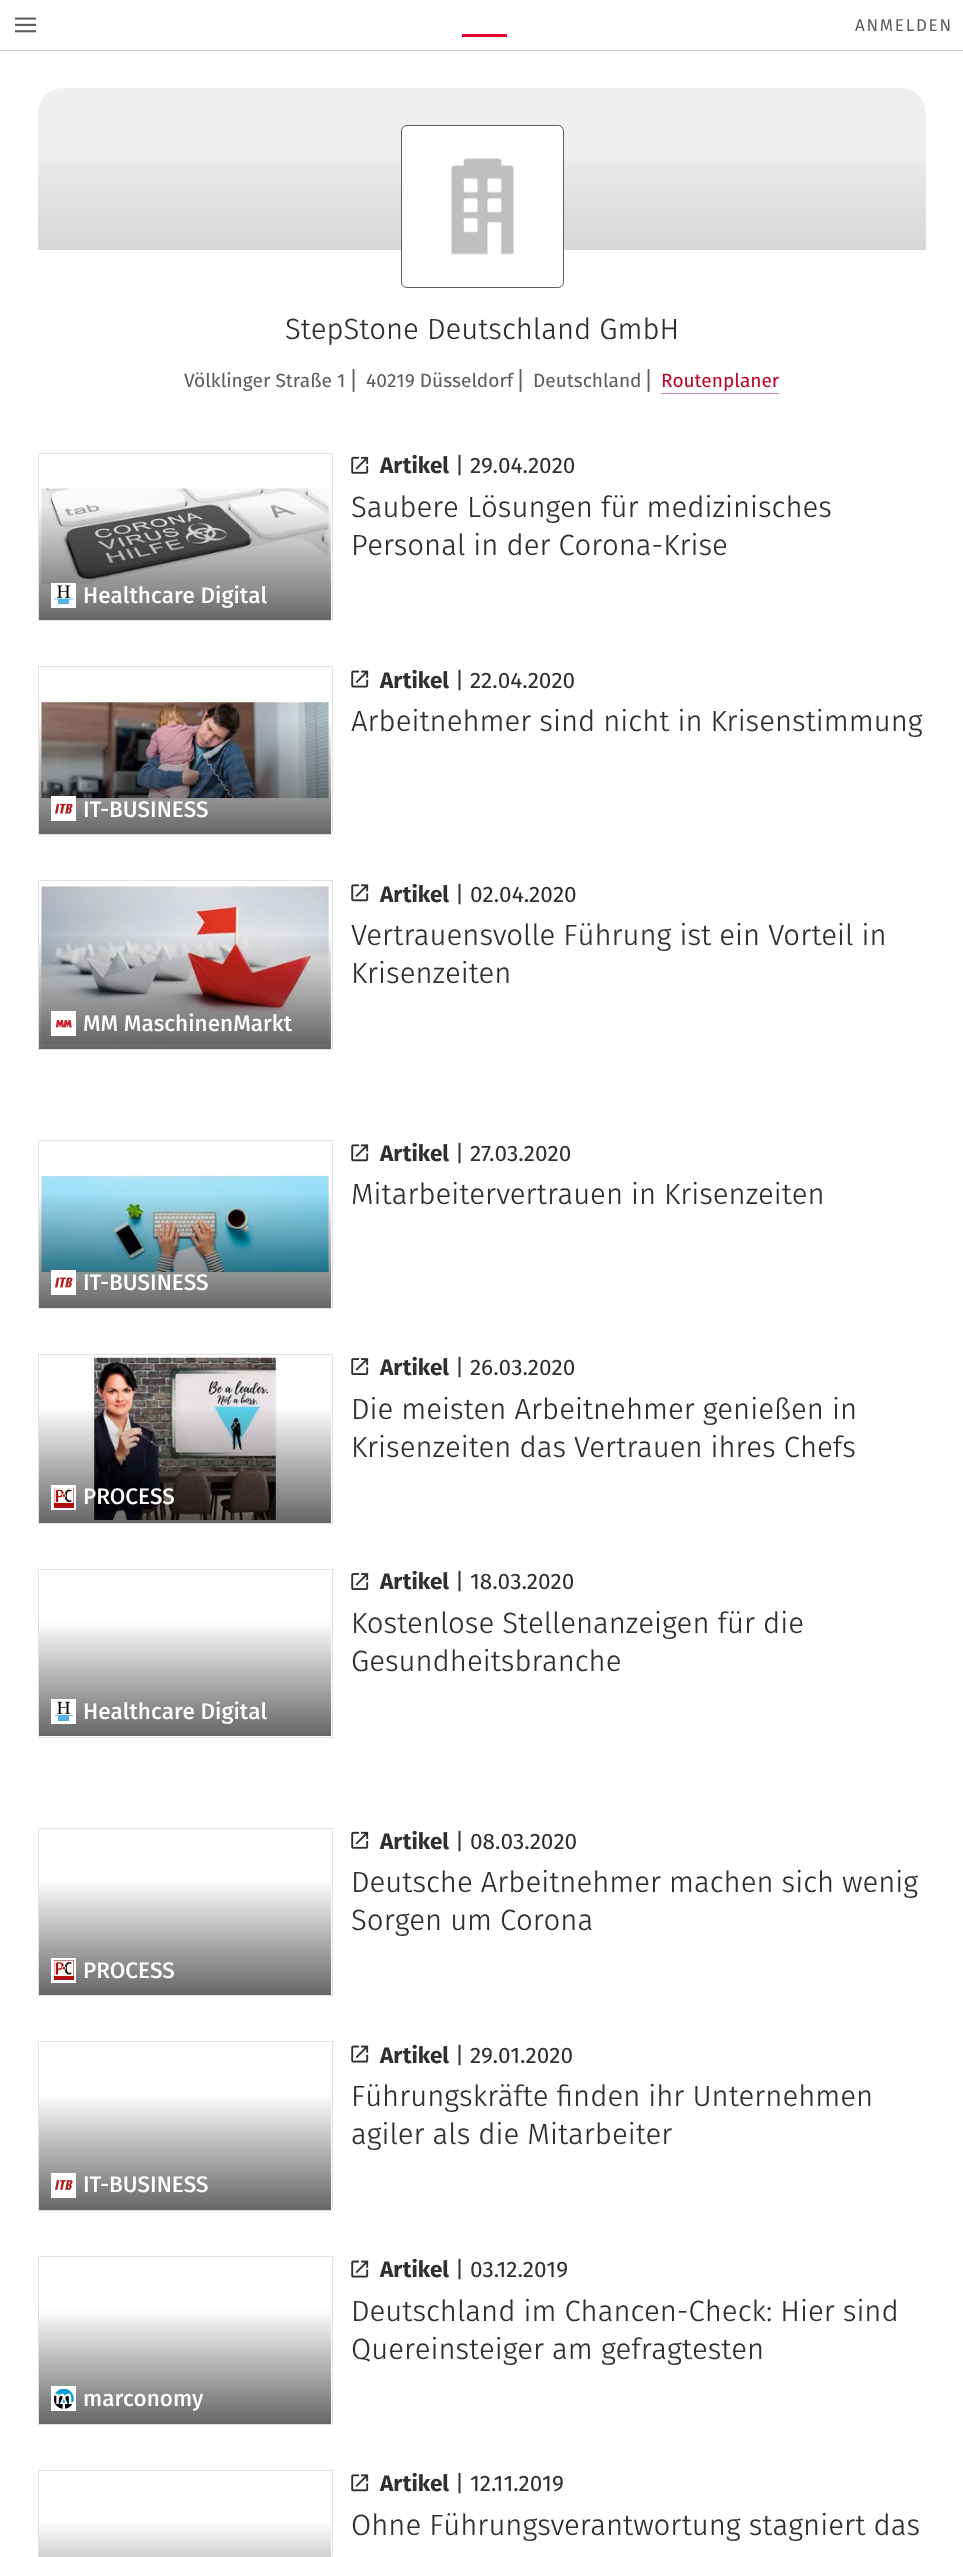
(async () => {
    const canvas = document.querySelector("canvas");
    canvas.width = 963;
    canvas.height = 2557;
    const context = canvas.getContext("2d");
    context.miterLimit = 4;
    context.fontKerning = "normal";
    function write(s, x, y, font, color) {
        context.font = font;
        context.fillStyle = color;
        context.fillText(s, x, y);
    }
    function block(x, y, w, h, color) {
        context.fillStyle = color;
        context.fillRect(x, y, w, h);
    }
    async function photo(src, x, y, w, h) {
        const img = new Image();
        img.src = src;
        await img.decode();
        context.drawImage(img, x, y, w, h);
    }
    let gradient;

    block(0, 0, 963, 2557, "rgb(255, 255, 255)");
    block(0, 50, 963, 1, "rgb(198, 198, 198)");
    await photo("media/1.png", 15, 17, 22, 16);
    context.letterSpacing = "1.75px";
    write("ANMELDEN", 855, 31, "17px 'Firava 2'", "rgb(94, 94, 94)");
    block(462, 34, 45, 3, "rgb(227, 3, 46)");
    context.fillStyle = "rgb(239, 239, 239)";
    context.beginPath();
    context.roundRect(38, 88, 888, 162, [25, 25, 0, 0]);
    context.fill();
    gradient = context.createLinearGradient(482, 250, 482, 88);
    gradient.addColorStop(0, "rgba(0, 0, 0, 0.1)");
    gradient.addColorStop(0.7, "rgba(0, 0, 0, 0)");
    context.fillStyle = gradient;
    context.fillRect(38, 161, 888, 89);
    context.fillStyle = "rgb(255, 255, 255)";
    context.beginPath();
    context.roundRect(401.5, 125.5, 162, 162, 5.5);
    context.fill();
    context.strokeStyle = "rgb(94, 94, 94)";
    context.stroke();
    await photo("media/2.png", 451, 158, 63, 97);
    context.letterSpacing = "0px";
    write("StepStone Deutschland GmbH", 285, 339, "300 29.25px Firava", "rgb(48, 48, 48)");
    write("Völklinger Straße 1", 184, 387, "19.1px Firava", "rgb(94, 94, 94)");
    write("⎢", 351, 387, "19.1px DejaVu Sans", "rgb(94, 94, 94)");
    write("40219 Düsseldorf", 366, 387, "19.1px Firava", "rgb(94, 94, 94)");
    write("⎢", 518, 387, "19.1px DejaVu Sans", "rgb(94, 94, 94)");
    write("Deutschland", 533, 387, "19.1px Firava", "rgb(94, 94, 94)");
    write("⎢", 646, 387, "19.1px DejaVu Sans", "rgb(94, 94, 94)");
    write("Routenplaner", 661, 387, "19.1px Firava", "rgb(186, 10, 44)");
    block(661, 393, 118, 1, "rgb(221, 133, 150)");
    await photo("media/3.png", 351, 456, 18, 18);
    write("Artikel", 380, 473, "bold 22.5px Firava", "rgb(48, 48, 48)");
    write("| 29.04.2020", 455, 473, "22.5px Firava", "rgb(48, 48, 48)");
    write("Saubere Lösungen für medizinisches", 351, 517, "300 29.25px Firava", "rgb(48, 48, 48)");
    write("Personal in der Corona-Krise", 351, 555, "300 29.25px Firava", "rgb(48, 48, 48)");
    context.strokeStyle = "rgb(226, 226, 226)";
    context.strokeRect(38.5, 453.5, 294, 167);
    await photo("media/4.png", 41, 488, 288, 97);
    gradient = context.createLinearGradient(185, 620, 185, 454);
    gradient.addColorStop(0, "rgba(0, 0, 0, 0.6)");
    gradient.addColorStop(0.7, "rgba(0, 0, 0, 0)");
    context.fillStyle = gradient;
    context.fillRect(39, 508, 292, 112);
    block(51, 583, 25, 25, "rgb(255, 255, 255)");
    await photo("media/5.png", 54, 585, 19, 19);
    write("Healthcare Digital", 83, 603, "500 22.5px Firava", "rgb(255, 255, 255)");
    await photo("media/6.png", 351, 670, 18, 18);
    write("Artikel", 380, 688, "bold 22.5px Firava", "rgb(48, 48, 48)");
    write("| 22.04.2020", 455, 688, "22.5px Firava", "rgb(48, 48, 48)");
    write("Arbeitnehmer sind nicht in Krisenstimmung", 351, 731, "300 29.25px Firava", "rgb(48, 48, 48)");
    context.strokeRect(38.5, 666.5, 294, 168);
    await photo("media/7.png", 41, 701, 288, 102);
    gradient = context.createLinearGradient(185, 834, 185, 668);
    gradient.addColorStop(0, "rgba(0, 0, 0, 0.6)");
    gradient.addColorStop(0.7, "rgba(0, 0, 0, 0)");
    context.fillStyle = gradient;
    context.fillRect(39, 722, 292, 112);
    block(51, 796, 25, 25, "rgb(255, 255, 255)");
    await photo("media/8.png", 55, 803, 18, 11);
    write("IT-BUSINESS", 83, 817, "500 22.5px Firava", "rgb(255, 255, 255)");
    await photo("media/9.png", 351, 884, 18, 18);
    write("Artikel", 380, 902, "bold 22.5px Firava", "rgb(48, 48, 48)");
    write("| 02.04.2020", 455, 902, "22.5px Firava", "rgb(48, 48, 48)");
    write("Vertrauensvolle Führung ist ein Vorteil in", 351, 945, "300 29.25px Firava", "rgb(48, 48, 48)");
    write("Krisenzeiten", 351, 983, "300 29.25px Firava", "rgb(48, 48, 48)");
    context.strokeRect(38.5, 880.5, 294, 169);
    await photo("media/10.png", 41, 884, 288, 160);
    gradient = context.createLinearGradient(185, 1049, 185, 881);
    gradient.addColorStop(0, "rgba(0, 0, 0, 0.6)");
    gradient.addColorStop(0.7, "rgba(0, 0, 0, 0)");
    context.fillStyle = gradient;
    context.fillRect(39, 936, 292, 113);
    block(51, 1011, 25, 25, "rgb(255, 255, 255)");
    await photo("media/11.png", 55, 1019, 17, 9);
    write("MM MaschinenMarkt", 83, 1031, "500 22.5px Firava", "rgb(255, 255, 255)");
    await photo("media/9.png", 351, 1144, 18, 18);
    write("Artikel", 380, 1161, "bold 22.5px Firava", "rgb(48, 48, 48)");
    write("| 27.03.2020", 455, 1161, "22.5px Firava", "rgb(48, 48, 48)");
    write("Mitarbeitervertrauen in Krisenzeiten", 351, 1204, "300 29.25px Firava", "rgb(48, 48, 48)");
    context.strokeRect(38.5, 1140.5, 294, 168);
    await photo("media/12.png", 41, 1173, 288, 102);
    gradient = context.createLinearGradient(185, 1308, 185, 1141);
    gradient.addColorStop(0, "rgba(0, 0, 0, 0.6)");
    gradient.addColorStop(0.7, "rgba(0, 0, 0, 0)");
    context.fillStyle = gradient;
    context.fillRect(39, 1195, 292, 113);
    block(51, 1270, 25, 25, "rgb(255, 255, 255)");
    await photo("media/13.png", 55, 1277, 18, 11);
    write("IT-BUSINESS", 83, 1290, "500 22.5px Firava", "rgb(255, 255, 255)");
    await photo("media/14.png", 351, 1358, 18, 17);
    write("Artikel", 380, 1375, "bold 22.5px Firava", "rgb(48, 48, 48)");
    write("| 26.03.2020", 455, 1375, "22.5px Firava", "rgb(48, 48, 48)");
    write("Die meisten Arbeitnehmer genießen in", 351, 1419, "300 29.25px Firava", "rgb(48, 48, 48)");
    write("Krisenzeiten das Vertrauen ihres Chefs", 351, 1457, "300 29.25px Firava", "rgb(48, 48, 48)");
    context.strokeRect(38.5, 1354.5, 294, 169);
    await photo("media/15.png", 92, 1357, 187, 163);
    gradient = context.createLinearGradient(185, 1523, 185, 1355);
    gradient.addColorStop(0, "rgba(0, 0, 0, 0.6)");
    gradient.addColorStop(0.7, "rgba(0, 0, 0, 0)");
    context.fillStyle = gradient;
    context.fillRect(39, 1410, 292, 113);
    block(51, 1485, 25, 25, "rgb(255, 255, 255)");
    await photo("media/16.png", 54, 1488, 20, 20);
    write("PROCESS", 83, 1504, "500 22.5px Firava", "rgb(255, 255, 255)");
    await photo("media/14.png", 351, 1573, 18, 17);
    write("Artikel", 380, 1589, "bold 22.5px Firava", "rgb(48, 48, 48)");
    write("| 18.03.2020", 455, 1589, "22.5px Firava", "rgb(48, 48, 48)");
    write("Kostenlose Stellenanzeigen für die", 351, 1633, "300 29.25px Firava", "rgb(48, 48, 48)");
    write("Gesundheitsbranche", 351, 1671, "300 29.25px Firava", "rgb(48, 48, 48)");
    context.strokeRect(38.5, 1569.5, 294, 168);
    gradient = context.createLinearGradient(185, 1736, 185, 1570);
    gradient.addColorStop(0, "rgb(102, 102, 102)");
    gradient.addColorStop(0.7, "rgb(255, 255, 255)");
    context.fillStyle = gradient;
    context.fillRect(39, 1622, 292, 114);
    block(51, 1699, 25, 25, "rgb(255, 255, 255)");
    await photo("media/17.png", 55, 1701, 18, 20);
    write("Healthcare Digital", 83, 1719, "500 22.5px Firava", "rgb(255, 255, 255)");
    await photo("media/3.png", 351, 1831, 18, 18);
    write("Artikel", 380, 1849, "bold 22.5px Firava", "rgb(48, 48, 48)");
    write("| 08.03.2020", 455, 1849, "22.5px Firava", "rgb(48, 48, 48)");
    write("Deutsche Arbeitnehmer machen sich wenig", 351, 1892, "300 29.25px Firava", "rgb(48, 48, 48)");
    write("Sorgen um Corona", 351, 1930, "300 29.25px Firava", "rgb(48, 48, 48)");
    context.strokeRect(38.5, 1828.5, 294, 167);
    gradient = context.createLinearGradient(185, 1995, 185, 1829);
    gradient.addColorStop(0, "rgb(102, 102, 102)");
    gradient.addColorStop(0.7, "rgb(255, 255, 255)");
    context.fillStyle = gradient;
    context.fillRect(39, 1881, 292, 114);
    block(51, 1958, 25, 25, "rgb(255, 255, 255)");
    await photo("media/18.png", 54, 1960, 20, 20);
    write("PROCESS", 83, 1978, "500 22.5px Firava", "rgb(255, 255, 255)");
    await photo("media/6.png", 351, 2045, 18, 18);
    write("Artikel", 380, 2063, "bold 22.5px Firava", "rgb(48, 48, 48)");
    write("| 29.01.2020", 455, 2063, "22.5px Firava", "rgb(48, 48, 48)");
    write("Führungskräfte finden ihr Unternehmen", 351, 2106, "300 29.25px Firava", "rgb(48, 48, 48)");
    write("agiler als die Mitarbeiter", 351, 2144, "300 29.25px Firava", "rgb(48, 48, 48)");
    context.strokeRect(38.5, 2041.5, 294, 169);
    gradient = context.createLinearGradient(185, 2210, 185, 2043);
    gradient.addColorStop(0, "rgb(102, 102, 102)");
    gradient.addColorStop(0.7, "rgb(255, 255, 255)");
    context.fillStyle = gradient;
    context.fillRect(39, 2095, 292, 115);
    block(51, 2173, 25, 25, "rgb(255, 255, 255)");
    await photo("media/19.png", 55, 2180, 18, 10);
    write("IT-BUSINESS", 83, 2192, "500 22.5px Firava", "rgb(255, 255, 255)");
    await photo("media/6.png", 351, 2260, 18, 18);
    write("Artikel", 380, 2277, "bold 22.5px Firava", "rgb(48, 48, 48)");
    write("| 03.12.2019", 455, 2277, "22.5px Firava", "rgb(48, 48, 48)");
    write("Deutschland im Chancen-Check: Hier sind", 351, 2321, "300 29.25px Firava", "rgb(48, 48, 48)");
    write("Quereinsteiger am gefragtesten", 351, 2359, "300 29.25px Firava", "rgb(48, 48, 48)");
    context.strokeRect(38.5, 2256.5, 294, 168);
    gradient = context.createLinearGradient(185, 2424, 185, 2258);
    gradient.addColorStop(0, "rgb(102, 102, 102)");
    gradient.addColorStop(0.7, "rgb(255, 255, 255)");
    context.fillStyle = gradient;
    context.fillRect(39, 2310, 292, 114);
    block(51, 2386, 25, 25, "rgb(255, 255, 255)");
    await photo("media/20.png", 54, 2389, 20, 20);
    write("marconomy", 83, 2406, "500 22.5px Firava", "rgb(255, 255, 255)");
    context.strokeRect(38.5, 2470.5, 294, 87);
    gradient = context.createLinearGradient(185, 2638, 185, 2471);
    gradient.addColorStop(0, "rgb(102, 102, 102)");
    gradient.addColorStop(0.7, "rgb(255, 255, 255)");
    context.fillStyle = gradient;
    context.fillRect(39, 2523, 292, 34);
    await photo("media/9.png", 351, 2474, 18, 18);
    write("Artikel", 380, 2491, "bold 22.5px Firava", "rgb(48, 48, 48)");
    write("| 12.11.2019", 455, 2491, "22.5px Firava", "rgb(48, 48, 48)");
    write("Ohne Führungsverantwortung stagniert das", 351, 2535, "300 29.25px Firava", "rgb(48, 48, 48)");
})();
